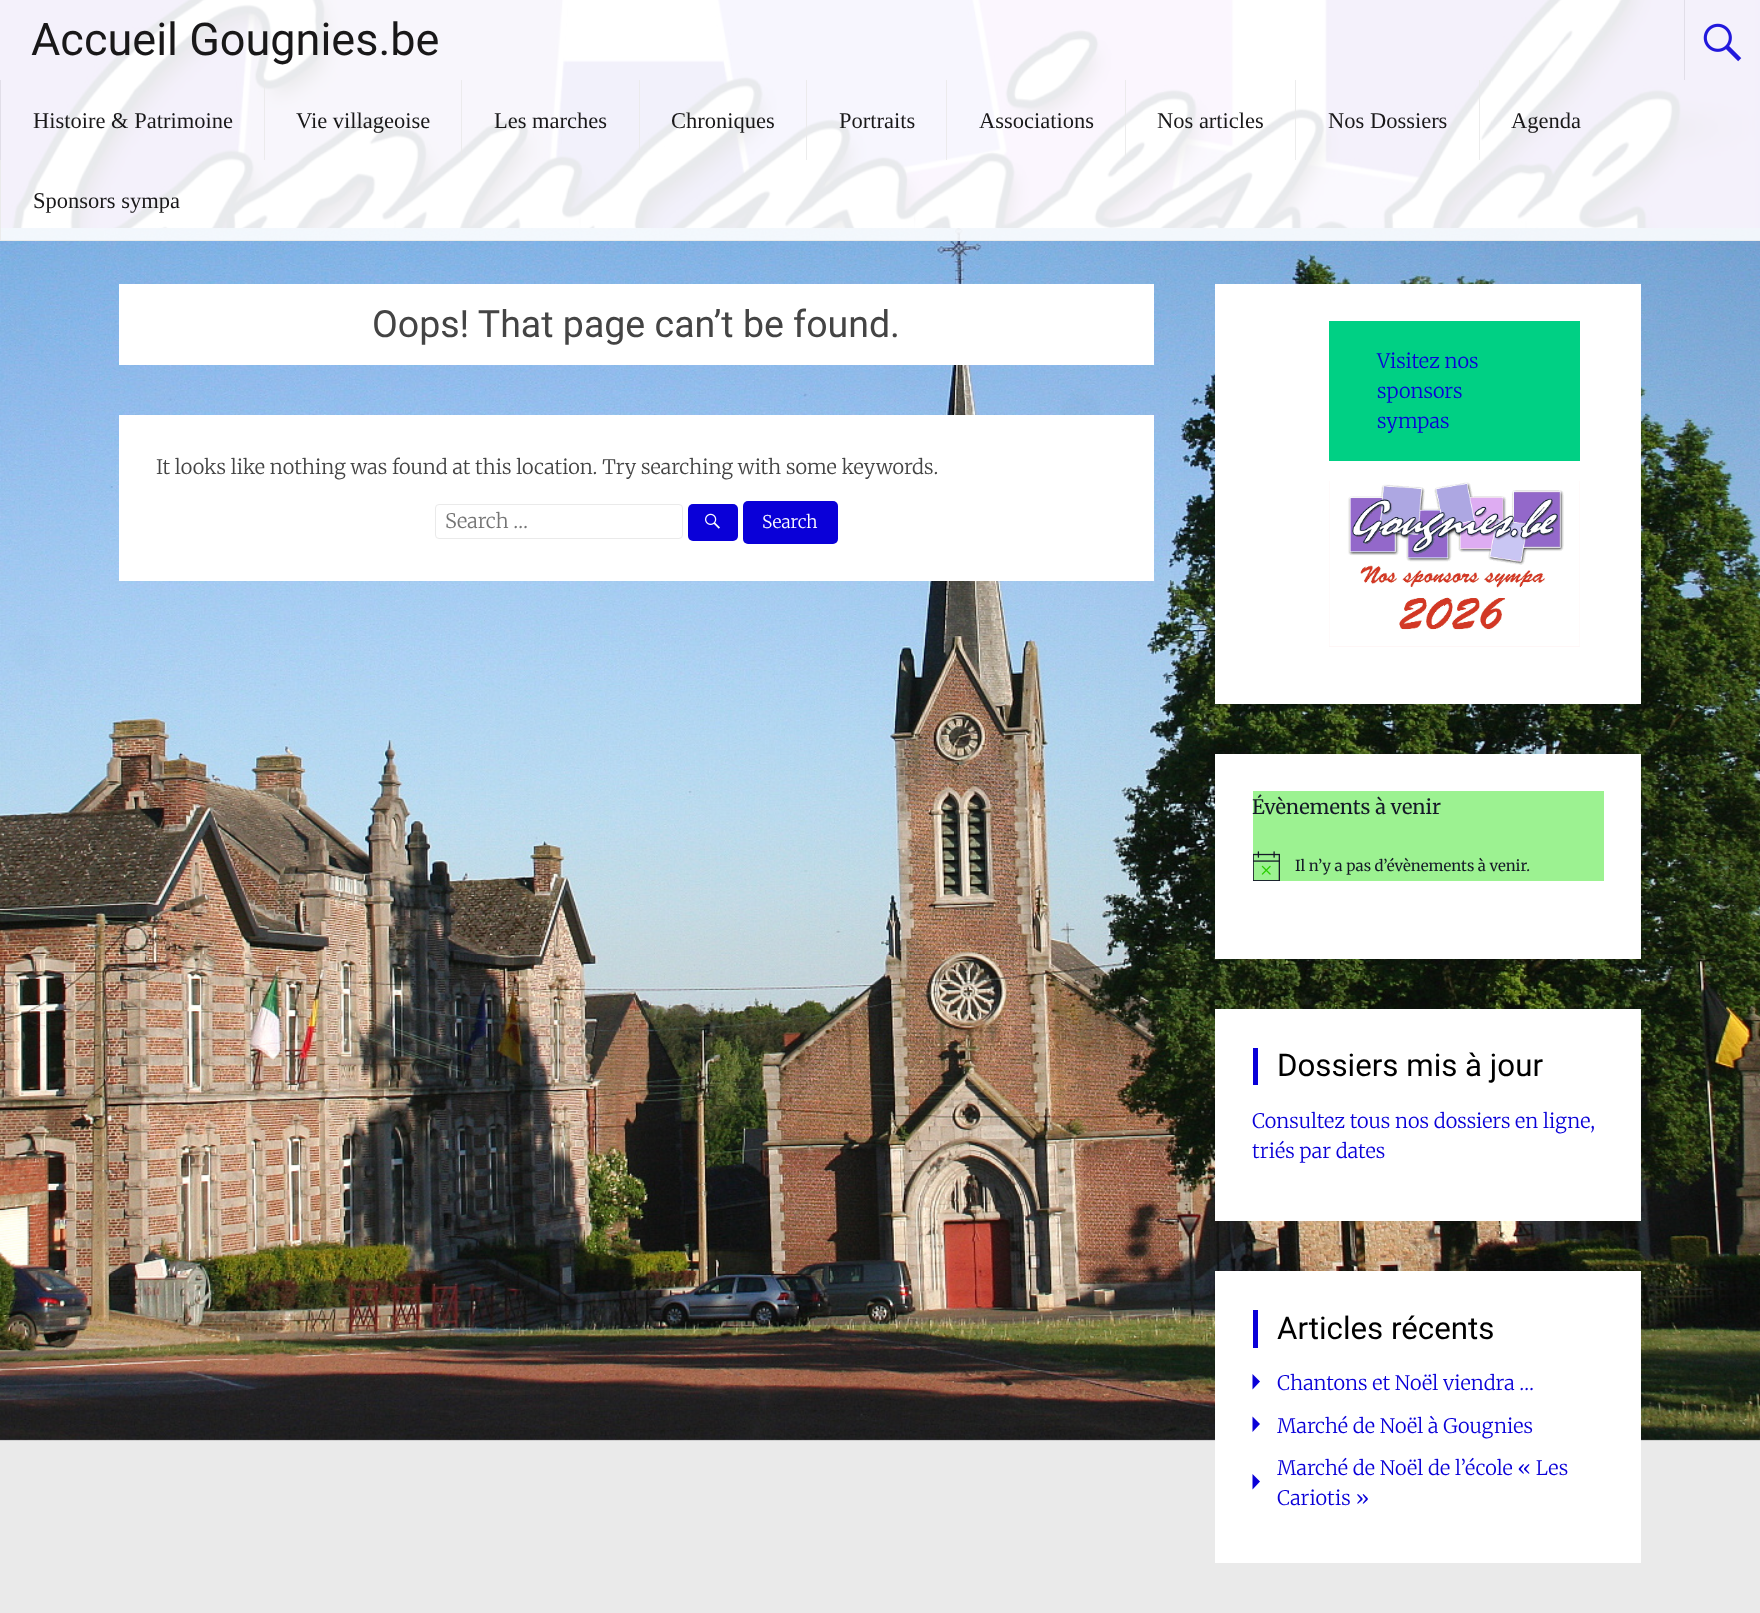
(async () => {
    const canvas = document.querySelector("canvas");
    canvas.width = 1760;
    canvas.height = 1613;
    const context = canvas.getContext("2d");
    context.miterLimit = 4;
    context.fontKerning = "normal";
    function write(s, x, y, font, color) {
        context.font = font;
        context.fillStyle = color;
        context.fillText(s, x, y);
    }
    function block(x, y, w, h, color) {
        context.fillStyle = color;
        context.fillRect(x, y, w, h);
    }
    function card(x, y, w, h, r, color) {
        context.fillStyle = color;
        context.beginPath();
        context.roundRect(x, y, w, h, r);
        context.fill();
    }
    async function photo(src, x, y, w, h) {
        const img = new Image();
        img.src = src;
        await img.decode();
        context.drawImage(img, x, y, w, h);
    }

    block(0, 0, 1760, 1613, "rgb(255, 255, 255)");
    await photo("media/1.png", 0, 0, 1760, 228);
    block(0, 1439, 1760, 174, "rgb(234, 234, 234)");
    await photo("media/3.png", 0, 228, 1760, 1213);
    block(0, 0, 1760, 241, "rgba(255, 255, 255, 0.9)");
    block(0, 240, 1760, 1, "rgba(234, 234, 234, 0.9)");
    write("Accueil Gougnies.be", 31, 55, "45px Roboto", "rgb(25, 24, 25)");
    block(1684, 0, 1, 80, "rgb(225, 222, 232)");
    await photo("media/2.png", 1703, 23, 39, 39);
    block(0, 80, 1, 80, "rgb(225, 222, 232)");
    write("Histoire & Patrimoine", 33, 128, "22.5px Liberation Serif", "rgb(25, 24, 25)");
    block(264, 80, 1, 80, "rgba(234, 234, 234, 0.9)");
    write("Vie villageoise", 296, 128, "22.5px Liberation Serif", "rgb(25, 24, 25)");
    block(461, 80, 1, 80, "rgba(234, 234, 234, 0.9)");
    write("Les marches", 494, 128, "22.5px Liberation Serif", "rgb(25, 24, 25)");
    block(639, 80, 1, 80, "rgba(234, 234, 234, 0.9)");
    write("Chroniques", 671, 128, "22.5px Liberation Serif", "rgb(25, 24, 25)");
    block(806, 80, 1, 80, "rgba(234, 234, 234, 0.9)");
    write("Portraits", 839, 128, "22.5px Liberation Serif", "rgb(25, 24, 25)");
    block(946, 80, 1, 80, "rgba(234, 234, 234, 0.9)");
    write("Associations", 979, 128, "22.5px Liberation Serif", "rgb(25, 24, 25)");
    block(1125, 80, 1, 80, "rgba(234, 234, 234, 0.9)");
    write("Nos articles", 1157, 128, "22.5px Liberation Serif", "rgb(25, 24, 25)");
    block(1295, 80, 1, 80, "rgba(234, 234, 234, 0.9)");
    write("Nos Dossiers", 1328, 128, "22.5px Liberation Serif", "rgb(25, 24, 25)");
    block(1479, 80, 1, 80, "rgba(234, 234, 234, 0.9)");
    write("Agenda", 1511, 128, "22.5px Liberation Serif", "rgb(25, 24, 25)");
    block(0, 160, 1, 80, "rgba(234, 234, 234, 0.9)");
    write("Sponsors sympa", 33, 208, "22.5px Liberation Serif", "rgb(25, 24, 25)");
    block(119, 284, 1035, 81, "rgb(255, 255, 255)");
    write("Oops! That page can’t be found.", 372, 337, "37.5px Roboto", "rgb(68, 68, 68)");
    block(119, 415, 1035, 166, "rgb(255, 255, 255)");
    write("It looks like nothing was found at this location. Try searching with some keywords.", 156, 474, "300 20px Merriweather", "rgb(68, 68, 68)");
    context.beginPath();
    context.roundRect(435.5, 504.5, 247, 34, 3.5);
    context.strokeStyle = "rgb(234, 234, 234)";
    context.stroke();
    write("Search …", 445, 528, "300 20px Merriweather", "rgb(117, 117, 117)");
    card(688, 504, 50, 37, 5, "rgb(10, 0, 216)");
    await photo("media/4.png", 705, 513, 15, 16);
    card(743, 501, 95, 43, 5, "rgb(10, 0, 216)");
    write("Search", 762, 528, "300 17.5px Merriweather", "rgb(255, 255, 255)");
    block(1215, 284, 426, 420, "rgb(255, 255, 255)");
    block(1329, 321, 251, 140, "rgb(0, 208, 132)");
    write("Visitez nos", 1377, 368, "300 20px Merriweather", "rgb(10, 0, 216)");
    write("sponsors", 1377, 398, "300 20px Merriweather", "rgb(10, 0, 216)");
    write("sympas", 1377, 428, "300 20px Merriweather", "rgb(10, 0, 216)");
    await photo("media/5.png", 1329, 481, 251, 166);
    block(1215, 754, 426, 205, "rgb(255, 255, 255)");
    block(1253, 791, 351, 90, "rgb(156, 242, 145)");
    write("Évènements à venir", 1252, 814, "20px Merriweather", "rgb(20, 24, 39)");
    await photo("media/6.png", 1253, 851, 27, 30);
    write("Il n’y a pas d’évènements à venir.", 1295, 871, "15px Merriweather", "rgb(20, 24, 39)");
    block(1215, 1009, 426, 212, "rgb(255, 255, 255)");
    block(1253, 1048, 5, 37, "rgb(10, 0, 216)");
    write("Dossiers mis à jour", 1277, 1076, "31.25px Roboto", "rgb(0, 0, 0)");
    write("Consultez tous nos dossiers en ligne,", 1252, 1128, "300 20px Merriweather", "rgb(10, 0, 216)");
    write("triés par dates", 1252, 1158, "300 20px Merriweather", "rgb(10, 0, 216)");
    block(1215, 1271, 426, 292, "rgb(255, 255, 255)");
    block(1253, 1310, 5, 38, "rgb(10, 0, 216)");
    write("Articles récents", 1277, 1339, "31.25px Roboto", "rgb(0, 0, 0)");
    context.fillStyle = "rgb(10, 0, 216)";
    context.beginPath();
    context.moveTo(1252.5, 1389.5);
    context.lineTo(1252.5, 1374);
    context.lineTo(1260, 1381.5);
    context.closePath();
    context.fill();
    write("Chantons et Noël viendra …", 1277, 1390, "300 20px Merriweather", "rgb(10, 0, 216)");
    context.beginPath();
    context.moveTo(1252.5, 1432);
    context.lineTo(1252.5, 1416.5);
    context.lineTo(1260, 1424);
    context.closePath();
    context.fill();
    write("Marché de Noël à Gougnies", 1277, 1433, "300 20px Merriweather", "rgb(10, 0, 216)");
    write("Marché de Noël de l’école « Les", 1277, 1475, "300 20px Merriweather", "rgb(10, 0, 216)");
    context.beginPath();
    context.moveTo(1252.5, 1489.5);
    context.lineTo(1252.5, 1474);
    context.lineTo(1260, 1481.5);
    context.closePath();
    context.fill();
    write("Cariotis »", 1277, 1505, "300 20px Merriweather", "rgb(10, 0, 216)");
})();
